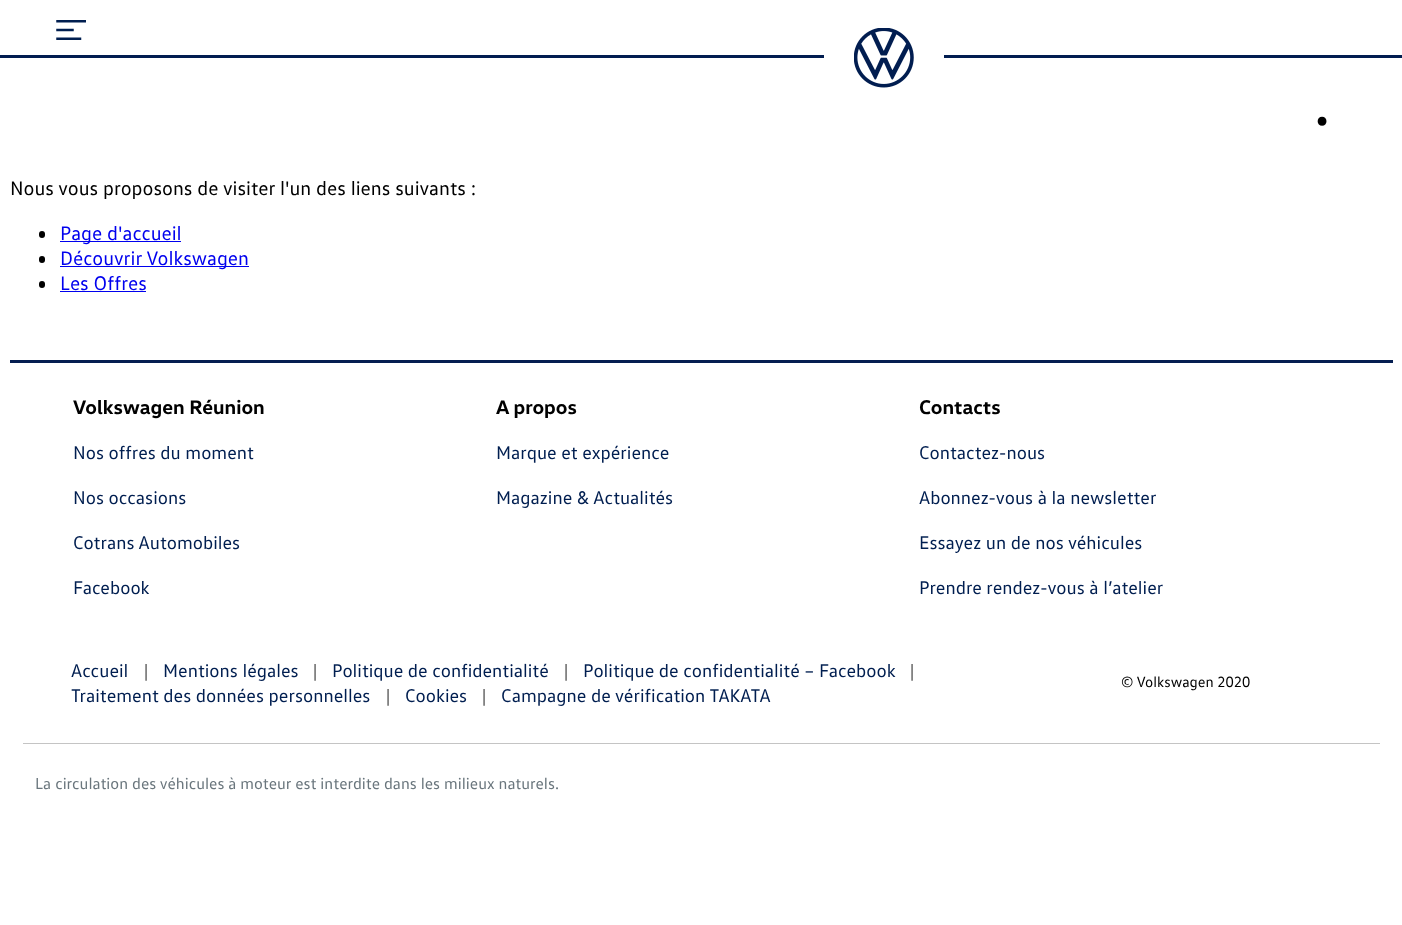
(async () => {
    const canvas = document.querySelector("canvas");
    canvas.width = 1402;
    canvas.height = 925;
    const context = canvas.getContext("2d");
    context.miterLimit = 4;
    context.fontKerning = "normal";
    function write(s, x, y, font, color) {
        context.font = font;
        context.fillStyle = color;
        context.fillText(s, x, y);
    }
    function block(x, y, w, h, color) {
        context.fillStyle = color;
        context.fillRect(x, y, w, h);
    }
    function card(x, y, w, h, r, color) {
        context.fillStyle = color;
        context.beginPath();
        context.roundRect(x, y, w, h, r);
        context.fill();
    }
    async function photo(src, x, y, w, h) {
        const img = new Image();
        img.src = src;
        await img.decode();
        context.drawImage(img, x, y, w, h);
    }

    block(0, 0, 1402, 925, "rgb(255, 255, 255)");
    await photo("media/1.png", 56, 20, 30, 20);
    block(0, 55, 824, 3, "rgb(1, 29, 80)");
    await photo("media/2.png", 854, 28, 60, 60);
    block(944, 55, 458, 3, "rgb(1, 29, 80)");
    write(".", 1315, 125, "bold 52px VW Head", "rgb(0, 0, 0)");
    write("Nous vous proposons de visiter l'un des liens suivants :", 10, 195, "20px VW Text", "rgb(0, 0, 0)");
    card(39, 231, 6, 7, 3, "rgb(0, 0, 0)");
    block(60, 241, 121, 1, "rgb(0, 0, 238)");
    write("Page d'accueil", 60, 240, "20px VW Text", "rgb(0, 0, 238)");
    card(39, 256, 6, 7, 3, "rgb(0, 0, 0)");
    block(60, 266, 189, 1, "rgb(0, 0, 238)");
    write("Découvrir Volkswagen", 60, 265, "20px VW Text", "rgb(0, 0, 238)");
    card(39, 281, 6, 7, 3, "rgb(0, 0, 0)");
    write("Les Offres", 60, 290, "20px VW Text", "rgb(0, 0, 238)");
    block(60, 291, 86, 1, "rgb(0, 0, 238)");
    block(10, 360, 1383, 3, "rgb(5, 30, 81)");
    write("Volkswagen Réunion", 73, 414, "bold 20px VW Head", "rgb(0, 0, 0)");
    write("Nos offres du moment", 73, 459, "18.75px VW Text", "rgb(0, 30, 80)");
    write("Nos occasions", 73, 504, "18.75px VW Text", "rgb(0, 30, 80)");
    write("Cotrans Automobiles", 73, 549, "18.75px VW Text", "rgb(0, 30, 80)");
    write("Facebook", 73, 594, "18.75px VW Text", "rgb(0, 30, 80)");
    write("A propos", 496, 414, "bold 20px VW Head", "rgb(0, 0, 0)");
    write("Marque et expérience", 496, 459, "18.75px VW Text", "rgb(0, 30, 80)");
    write("Magazine & Actualités", 496, 504, "18.75px VW Text", "rgb(0, 30, 80)");
    write("Contacts", 919, 414, "bold 20px VW Head", "rgb(0, 0, 0)");
    write("Contactez-nous", 919, 459, "18.75px VW Text", "rgb(0, 30, 80)");
    write("Abonnez-vous à la newsletter", 919, 504, "18.75px VW Text", "rgb(0, 30, 80)");
    write("Essayez un de nos véhicules", 919, 549, "18.75px VW Text", "rgb(0, 30, 80)");
    write("Prendre rendez-vous à l’atelier", 919, 594, "18.75px VW Text", "rgb(0, 30, 80)");
    block(23, 743, 1357, 1, "rgb(196, 196, 196)");
    write("Accueil", 71, 677, "18.75px VW Text", "rgb(0, 30, 80)");
    write("|", 144, 677, "300 18.75px VW Head", "rgb(0, 0, 0)");
    write("Mentions légales", 163, 677, "18.75px VW Text", "rgb(0, 30, 80)");
    write("|", 313, 677, "300 18.75px VW Head", "rgb(0, 0, 0)");
    write("Politique de confidentialité", 332, 677, "18.75px VW Text", "rgb(0, 30, 80)");
    write("|", 564, 677, "300 18.75px VW Head", "rgb(0, 0, 0)");
    write("Politique de confidentialité – Facebook", 583, 677, "18.75px VW Text", "rgb(0, 30, 80)");
    write("|", 910, 677, "300 18.75px VW Head", "rgb(0, 0, 0)");
    write("Traitement des données personnelles", 71, 702, "18.75px VW Text", "rgb(0, 30, 80)");
    write("|", 386, 702, "300 18.75px VW Head", "rgb(0, 0, 0)");
    write("Cookies", 405, 702, "18.75px VW Text", "rgb(0, 30, 80)");
    write("|", 482, 702, "300 18.75px VW Head", "rgb(0, 0, 0)");
    write("Campagne de vérification TAKATA", 501, 702, "18.75px VW Text", "rgb(0, 30, 80)");
    write("© Volkswagen 2020", 1121, 687, "15px VW Text", "rgb(0, 0, 0)");
    write("La circulation des véhicules à moteur est interdite dans les milieux naturels.", 35, 789, "16.25px VW Text", "rgb(106, 118, 125)");
})();
